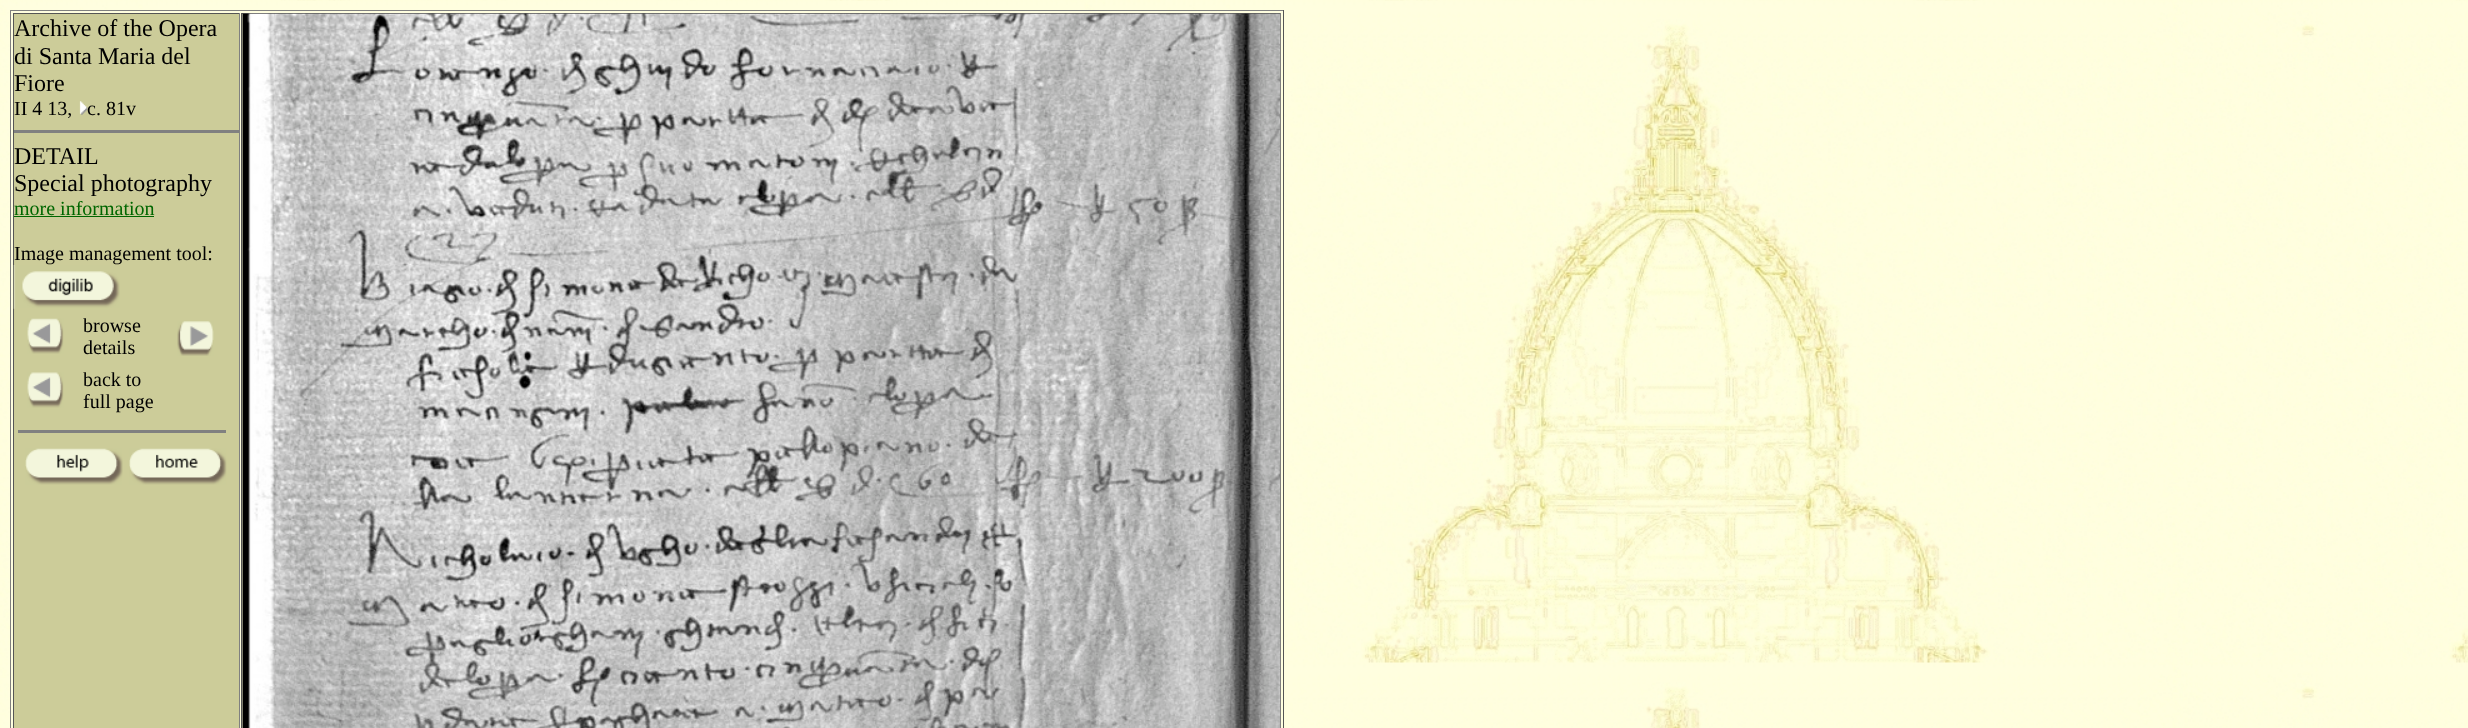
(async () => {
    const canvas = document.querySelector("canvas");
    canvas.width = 2468;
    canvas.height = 728;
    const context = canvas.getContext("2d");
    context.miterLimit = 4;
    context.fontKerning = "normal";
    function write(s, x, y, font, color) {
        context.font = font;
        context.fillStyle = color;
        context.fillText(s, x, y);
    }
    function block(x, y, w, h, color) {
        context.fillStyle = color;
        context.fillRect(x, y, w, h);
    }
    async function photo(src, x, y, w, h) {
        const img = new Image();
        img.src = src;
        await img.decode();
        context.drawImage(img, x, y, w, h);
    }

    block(0, 0, 2468, 728, "rgb(255, 255, 255)");
    await photo("media/1.png", 0, 0, 2468, 728);
    block(10, 10, 1274, 1, "rgb(128, 128, 128)");
    block(1283, 10, 1, 718, "rgb(85, 85, 85)");
    block(10, 10, 1, 718, "rgb(128, 128, 128)");
    block(14, 14, 225, 714, "rgb(204, 204, 153)");
    block(13, 13, 227, 1, "rgb(85, 85, 85)");
    block(239, 13, 1, 715, "rgb(128, 128, 128)");
    block(13, 13, 1, 715, "rgb(85, 85, 85)");
    write("Archive of the Opera", 14, 36, "24px Liberation Serif", "rgb(0, 0, 0)");
    write("di Santa Maria del", 14, 64, "24px Liberation Serif", "rgb(0, 0, 0)");
    write("Fiore", 14, 91, "24px Liberation Serif", "rgb(0, 0, 0)");
    write("II 4 13,", 14, 115, "20px Liberation Serif", "rgb(0, 0, 0)");
    await photo("media/2.png", 79, 101, 9, 14);
    write("c. 81v", 87, 115, "20px Liberation Serif", "rgb(0, 0, 0)");
    block(14, 130, 225, 3, "rgb(128, 128, 128)");
    write("DETAIL", 14, 164, "24px Liberation Serif", "rgb(0, 0, 0)");
    write("Special photography", 14, 191, "24px Liberation Serif", "rgb(0, 0, 0)");
    write("more information", 14, 215, "20px Liberation Serif", "rgb(0, 102, 0)");
    block(14, 216, 140, 1, "rgb(0, 102, 0)");
    write("Image management tool:", 14, 260, "20px Liberation Serif", "rgb(0, 0, 0)");
    await photo("media/3.png", 13, 265, 107, 44);
    await photo("media/4.png", 27, 318, 37, 36);
    write("browse", 83, 332, "20px Liberation Serif", "rgb(0, 0, 0)");
    write("details", 83, 354, "20px Liberation Serif", "rgb(0, 0, 0)");
    await photo("media/5.png", 177, 321, 37, 35);
    await photo("media/6.png", 27, 372, 37, 36);
    write("back to", 83, 386, "20px Liberation Serif", "rgb(0, 0, 0)");
    write("full page", 83, 408, "20px Liberation Serif", "rgb(0, 0, 0)");
    block(18, 430, 208, 3, "rgb(128, 128, 128)");
    await photo("media/7.png", 25, 448, 98, 37);
    await photo("media/8.png", 129, 448, 98, 37);
    block(241, 13, 1040, 1, "rgb(85, 85, 85)");
    block(1280, 13, 1, 715, "rgb(128, 128, 128)");
    block(241, 13, 1, 715, "rgb(85, 85, 85)");
    await photo("media/9.png", 242, 13, 1038, 715);
})();
